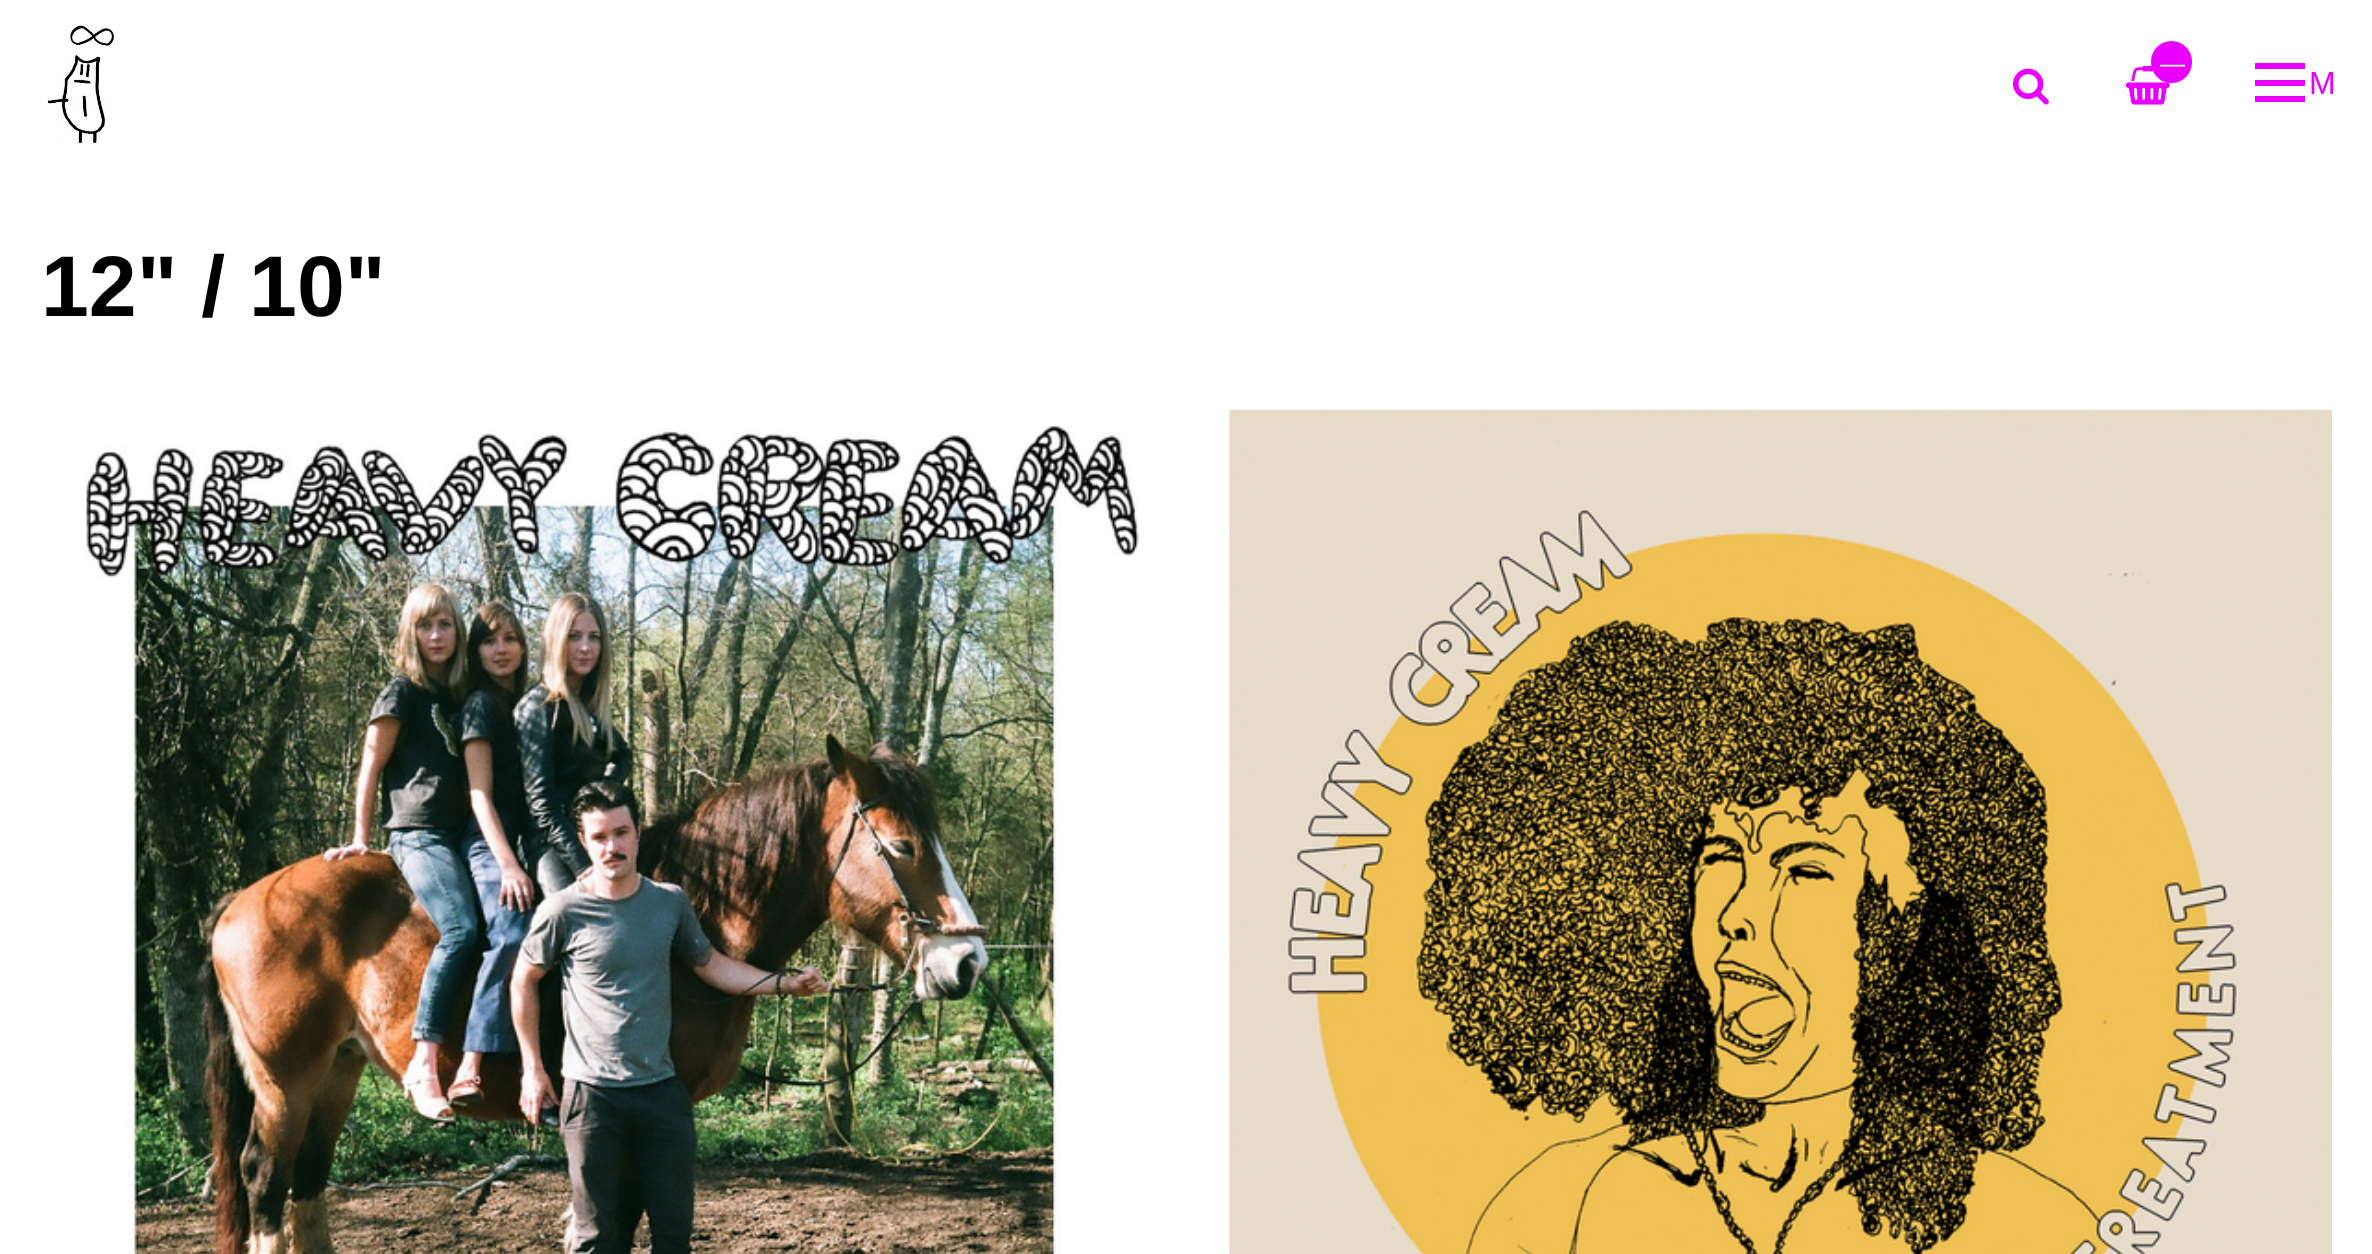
(async () => {
    const canvas = document.querySelector("canvas");
    canvas.width = 2372;
    canvas.height = 1254;
    const context = canvas.getContext("2d");
    context.miterLimit = 4;
    context.fontKerning = "normal";
    function write(s, x, y, font, color) {
        context.font = font;
        context.fillStyle = color;
        context.fillText(s, x, y);
    }
    function block(x, y, w, h, color) {
        context.fillStyle = color;
        context.fillRect(x, y, w, h);
    }
    function card(x, y, w, h, r, color) {
        context.fillStyle = color;
        context.beginPath();
        context.roundRect(x, y, w, h, r);
        context.fill();
    }
    async function photo(src, x, y, w, h) {
        const img = new Image();
        img.src = src;
        await img.decode();
        context.drawImage(img, x, y, w, h);
    }

    block(0, 0, 2372, 1254, "rgb(255, 255, 255)");
    await photo("media/1.png", 47, 25, 67, 129);
    await photo("media/2.png", 2125, 65, 45, 40);
    card(2151, 41, 41, 42, 20.5, "rgb(234, 0, 255)");
    context.letterSpacing = "2px";
    write("—", 2160, 72, "25px Liberation Sans", "rgb(255, 255, 255)");
    await photo("media/3.png", 2013, 68, 36, 37);
    block(2255, 80, 50, 6, "rgb(234, 0, 255)");
    block(2255, 63, 50, 6, "rgb(234, 0, 255)");
    block(2255, 96, 50, 6, "rgb(234, 0, 255)");
    write("M", 2309, 94, "32px Liberation Sans", "rgb(234, 0, 255)");
    context.letterSpacing = "0px";
    write("12\" / 10\"", 41, 316, "bold 86px Liberation Sans", "rgb(0, 0, 0)");
    await photo("media/4.png", 85, 425, 1054, 829);
    await photo("media/5.png", 1229, 409, 1103, 845);
})();
